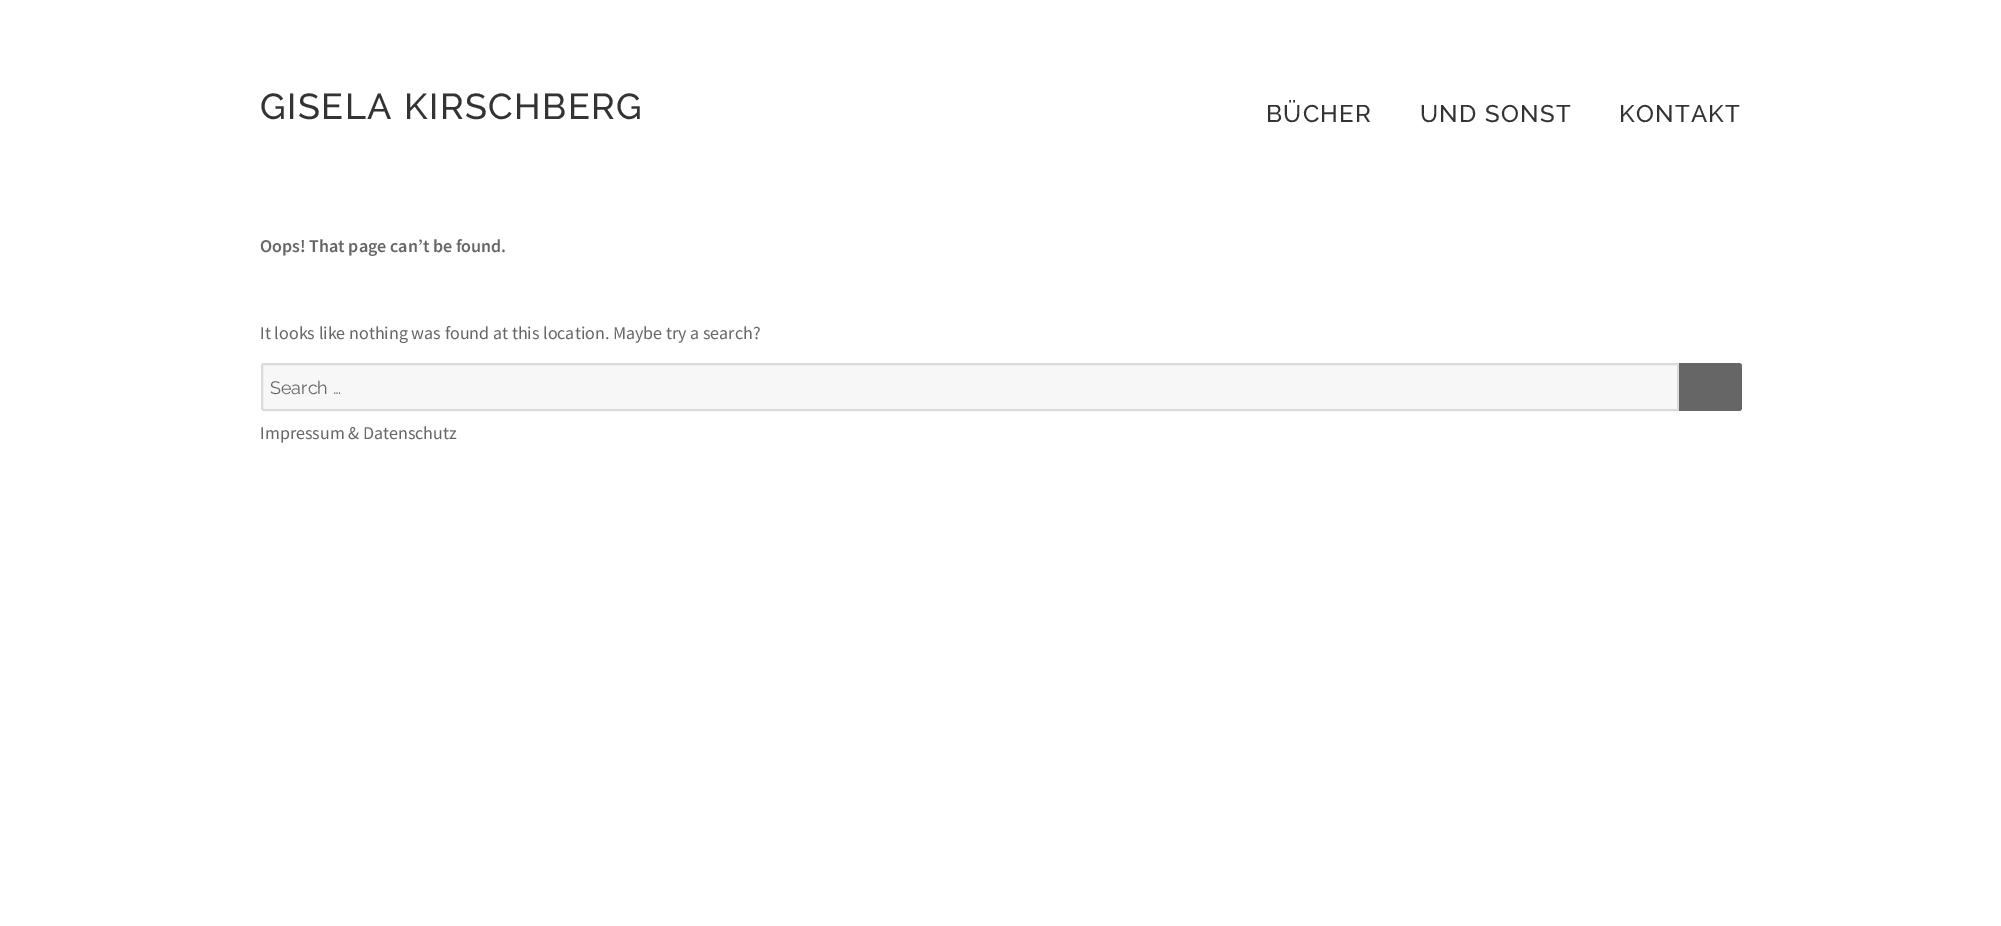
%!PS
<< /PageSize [2001 926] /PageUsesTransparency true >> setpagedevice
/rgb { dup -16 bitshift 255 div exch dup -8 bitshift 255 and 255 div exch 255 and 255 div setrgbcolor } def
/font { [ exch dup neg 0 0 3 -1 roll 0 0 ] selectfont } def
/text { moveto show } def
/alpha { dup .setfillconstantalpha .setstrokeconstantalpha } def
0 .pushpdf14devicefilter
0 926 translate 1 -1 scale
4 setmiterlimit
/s1 { /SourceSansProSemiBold-SemiBold 18 font 16#666666 rgb } def
/s2 { /SourceSansPro-Regular 18 font 16#666666 rgb } def
/s3 { /Raleway-Regular 18 font 16#666666 rgb } def
16#FFFFFF rgb
0 0 2001 926 rectfill
/Raleway-Medium 36 font
16#333333 rgb
260 119 moveto 1.5 0 (GISELA KIRSCHBERG) ashow
/Raleway-Medium 24 font
1266 122 moveto 1.25 0 (BÜCHER) ashow
1420 122 moveto 1.25 0 (UND SONST) ashow
1619 122 moveto 1.25 0 (KONTAKT) ashow
s1
(Oops! That page can’t be found.) 260 252 text
s2
(It looks like nothing was found at this location. Maybe try a search?) 260 339 text
16#F7F7F7 rgb
264 363 moveto 1679 363 lineto 1679 411 lineto 264 411 lineto 262.5 411 261 409.5 261 408 curveto 261 366 lineto 261 364.5 262.5 363 264 363 curveto closepath fill
0.2 alpha
16#666666 rgb
2 setlinewidth
264 364 moveto 1678 364 lineto 1678 410 lineto 264 410 lineto 263 410 262 409 262 408 curveto 262 366 lineto 262 365 263 364 264 364 curveto closepath stroke
1 alpha
s3
(Search …) 270 394 text
1679 363 moveto 1739 363 lineto 1740.5 363 1742 364.5 1742 366 curveto 1742 408 lineto 1742 409.5 1740.5 411 1739 411 curveto 1679 411 lineto closepath fill
s2
(Impressum & Datenschutz) 260 439 text
.poppdf14devicefilter showpage
